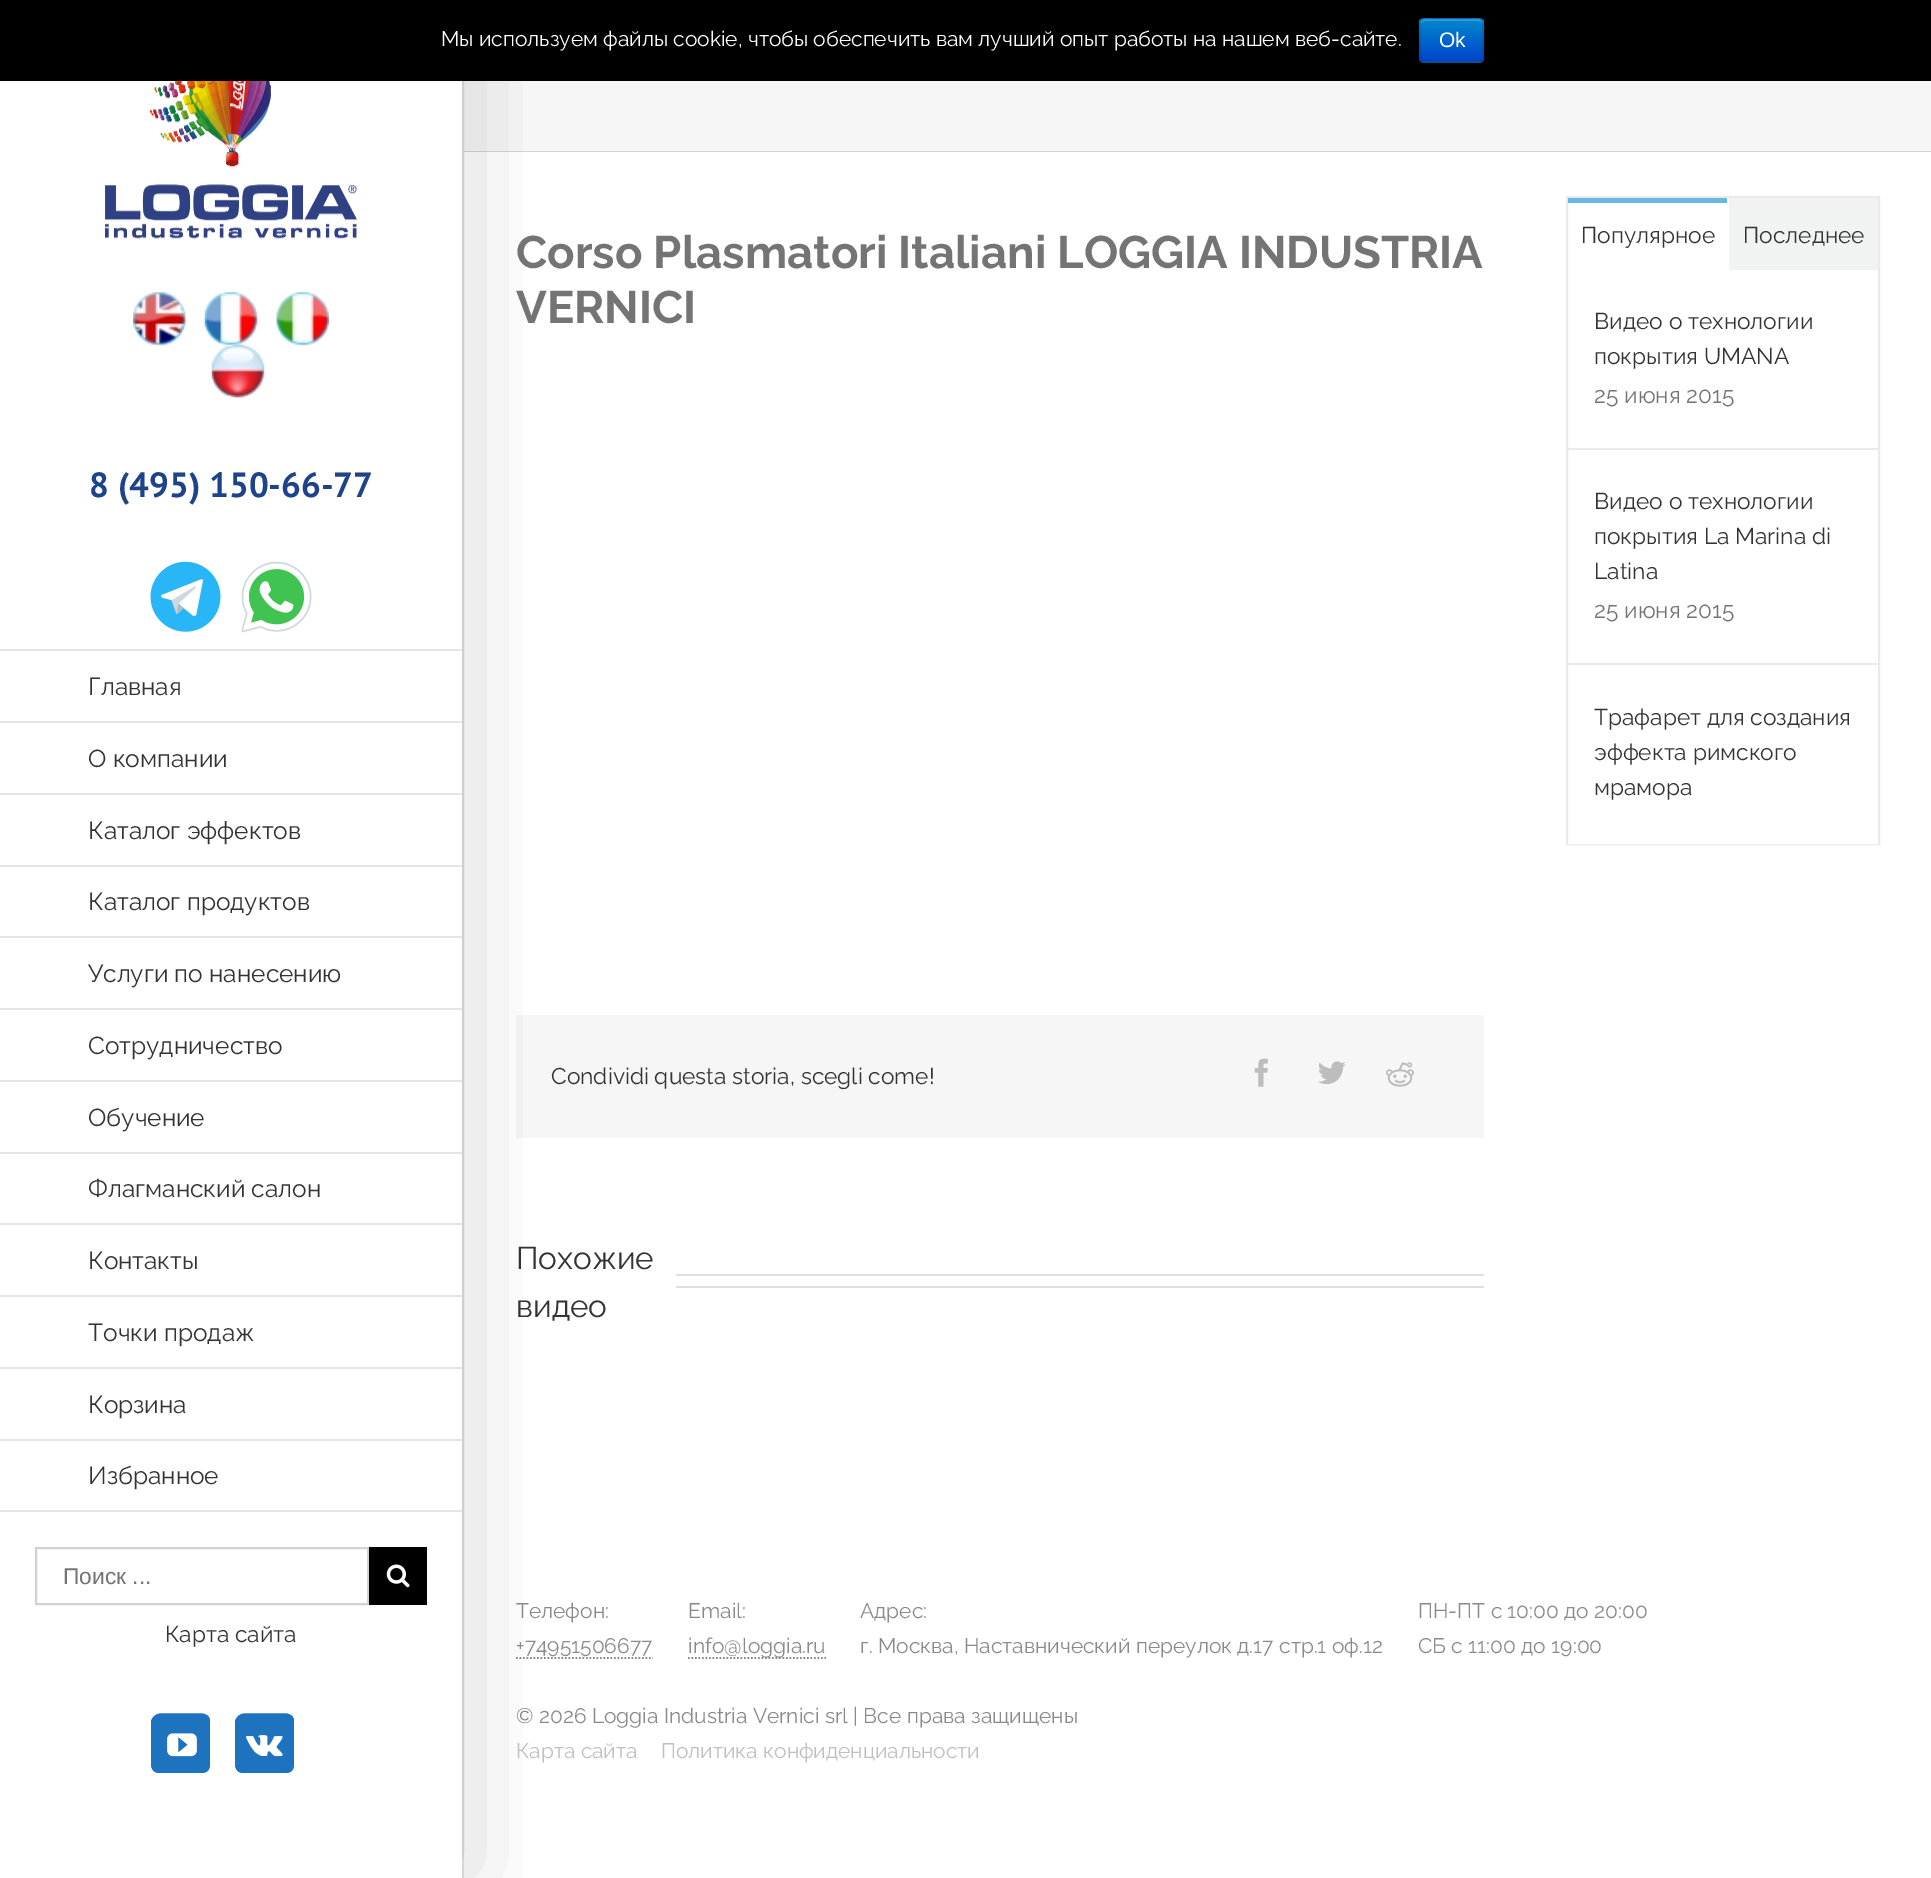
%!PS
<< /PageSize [1931 1878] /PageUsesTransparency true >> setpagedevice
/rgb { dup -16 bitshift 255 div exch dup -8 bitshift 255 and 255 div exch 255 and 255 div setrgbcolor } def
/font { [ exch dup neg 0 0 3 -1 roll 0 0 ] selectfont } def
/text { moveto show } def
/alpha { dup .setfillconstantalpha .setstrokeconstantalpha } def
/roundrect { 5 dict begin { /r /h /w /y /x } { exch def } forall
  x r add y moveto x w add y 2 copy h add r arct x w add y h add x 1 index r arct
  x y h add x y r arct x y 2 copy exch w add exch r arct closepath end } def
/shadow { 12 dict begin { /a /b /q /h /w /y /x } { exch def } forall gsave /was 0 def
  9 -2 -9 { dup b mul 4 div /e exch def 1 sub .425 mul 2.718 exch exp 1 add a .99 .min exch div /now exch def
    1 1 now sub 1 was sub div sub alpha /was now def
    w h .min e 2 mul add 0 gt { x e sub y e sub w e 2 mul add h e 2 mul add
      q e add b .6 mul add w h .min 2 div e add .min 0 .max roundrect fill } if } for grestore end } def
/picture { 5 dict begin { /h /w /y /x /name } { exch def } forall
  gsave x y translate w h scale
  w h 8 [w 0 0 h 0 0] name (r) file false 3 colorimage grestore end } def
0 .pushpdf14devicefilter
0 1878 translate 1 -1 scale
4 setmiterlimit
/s1 { /Raleway-Regular 21 font 16#FFFFFF rgb } def
/s2 { /LiberationSans-Regular 21 font 16#FFFFFF rgb } def
/s3 { /PTSans-Bold 35 font 16#1E438A rgb } def
/s4 { /Raleway-Regular 24.5 font 16#333333 rgb } def
/s5 { /LiberationSans-Regular 22.75 font 16#747474 rgb } def
/s6 { /Raleway-Regular 22.75 font 16#333333 rgb } def
/s7 { /Raleway-Bold 45.5 font 16#747474 rgb } def
/s8 { /Raleway-Regular 31.5 font 16#333333 rgb } def
/s9 { /Raleway-Regular 22.75 font 16#747474 rgb } def
/s10 { /Raleway-Regular 21 font 16#8C8989 rgb } def
/s11 { /Raleway-Regular 21 font 16#BFBFBF rgb } def
16#FFFFFF rgb
0 0 1931 1878 rectfill
16#E5E5E5 rgb
462 81 2 1797 rectfill
(pic1.raw) 105 81 252 158 picture
(pic2.raw) 133 292 53 54 picture
(pic3.raw) 204 292 54 54 picture
(pic4.raw) 276 292 53 54 picture
(pic5.raw) 211 344 54 54 picture
(pic6.raw) 150 561 71 71 picture
(pic7.raw) 241 561 71 72 picture
0 649 462 2 rectfill
0 721 462 2 rectfill
0 793 462 2 rectfill
0 865 462 2 rectfill
0 936 462 2 rectfill
0 1008 462 2 rectfill
0 1080 462 2 rectfill
0 1152 462 2 rectfill
0 1223 462 2 rectfill
0 1295 462 2 rectfill
0 1367 462 2 rectfill
0 1439 462 2 rectfill
0 1510 462 2 rectfill
16#D2D2D2 rgb
2 setlinewidth
36 1548 332 56 rectstroke
16#000000 rgb
369 1547 58 58 rectfill
(pic8.raw) 386 1564 24 24 picture
(pic9.raw) 151 1713 59 60 picture
(pic10.raw) 235 1713 59 60 picture
16#F6F6F6 rgb
464 81 1467 70 rectfill
16#D2D3D4 rgb
464 151 1467 1 rectfill
16#F6F6F6 rgb
516 1015 968 123 rectfill
16#8C8989 rgb
1.8 setlinewidth
[1.75 1.75] 0 setdash
516 1658 moveto 653 1658 lineto stroke
gsave
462 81 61 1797 rectclip
16#000000 rgb
21 4 455 1872 0 44 0.14 shadow
grestore
16#000000 rgb
0 0 1931 81 rectfill
s1
(Мы используем файлы cookie, чтобы обеспечить вам лучший опыт работы на нашем веб-сайте.) 441 46 text
16#006DCC rgb
1419 18 65 45 5 roundrect fill
gsave
1419 18 65 45 5 roundrect clip newpath
gsave 1419 19 moveto 1484 19 lineto 1484 61 lineto 1419 61 lineto closepath clip newpath
<< /ShadingType 2 /ColorSpace /DeviceRGB /Coords [1452 19 1452 61] /Extend [true true] /Function << /FunctionType 2 /Domain [0 1] /C0 [0 0.533 0.8] /C1 [0 0.267 0.8] /N 1 >> >> shfill grestore
grestore
0.2 alpha
16#FFFFFF rgb
1424 21 moveto 1479 21 lineto 1481 21 1482 23 1482 24 curveto 1482 17 1474 19 1469 19 curveto 1434 19 lineto 1429 19 1421 17 1421 24 curveto 1421 23 1423 21 1424 21 curveto closepath fill
0.25 alpha
16#000000 rgb
[] 0 setdash
1482 61 moveto 1481 61.5 1480 62 1479 62 curveto 1424.5 62 lineto 1423.5 62 1422 61.5 1421.5 61 curveto stroke
0.1 alpha
1421.5 61 moveto 1420.5 60 1420 59 1420 58 curveto 1420 23 lineto 1420 21.5 1420.5 20.5 1421.5 19.5 curveto 1422 19 1423.5 18.5 1424.5 18.5 curveto 1479 18.5 lineto 1480 18.5 1481 19 1482 19.5 curveto 1482.5 20.5 1483 21.5 1483 23 curveto 1483 58 lineto 1483 59 1482.5 60 1482 61 curveto stroke
1 alpha
s2
(Ok) 1439 47 text
s3
(8 \(495\) 150-66-77) 89 497 text
s4
(Главная) 88 695 text
(О компании) 88 767 text
(Каталог эффектов) 88 839 text
(Каталог продуктов) 88 910 text
(Услуги по нанесению) 88 982 text
(Сотрудничество) 88 1054 text
(Обучение) 88 1126 text
(Флагманский салон) 88 1197 text
(Контакты) 88 1269 text
(Точки продаж) 88 1341 text
(Корзина) 88 1413 text
(Избранное) 88 1484 text
s5
(Поиск ...) 63 1584 text
s6
(Карта сайта) 165 1642 text
s7
(Corso Plasmatori Italiani LOGGIA INDUSTRIA) 516 268 text
(VERNICI) 516 323 text
s6
(Condividi questa storia, scegli come!) 551 1084 text
(pic11.raw) 1254 1058 14 29 picture
(pic12.raw) 1318 1061 28 24 picture
(pic13.raw) 1386 1062 28 25 picture
s8
(Похожие) 516 1269 text
(видео) 516 1317 text
16#E0DEDE rgb
676 1274 808 2 rectfill
676 1286 808 2 rectfill
16#EBEAEA rgb
2 setlinewidth
1567 197 312 647 rectstroke
16#67B7E1 rgb
1568 198 159 5 rectfill
s6
(Популярное) 1581 243 text
16#F1F2F2 rgb
1729 198 149 72 rectfill
s6
(Последнее) 1743 243 text
16#FFFFFF rgb
1568 843 310 1 rectfill
16#EBEAEA rgb
1568 448 310 2 rectfill
s6
(Видео о технологии) 1594 329 text
(покрытия UMANA) 1594 364 text
s9
(25 июня 2015) 1594 403 text
16#EBEAEA rgb
1568 663 310 2 rectfill
s6
(Видео о технологии) 1594 509 text
(покрытия La Marina di) 1594 544 text
(Latina) 1594 579 text
s9
(25 июня 2015) 1594 618 text
s6
(Трафарет для создания) 1594 725 text
(эффекта римского) 1594 760 text
(мрамора) 1594 795 text
s10
(Телефон:) 516 1618 text
(+74951506677) 516 1653 text
(Email:) 688 1618 text
1.8 setlinewidth
[1.75 1.75] 0 setdash
688 1658 moveto 826 1658 lineto stroke
(info@loggia.ru) 688 1653 text
(Адрес:) 860 1618 text
(г. Москва, Наставнический переулок д.17 стр.1 оф.12) 860 1653 text
(ПН-ПТ с 10:00 до 20:00) 1418 1618 text
(СБ с 11:00 до 19:00) 1418 1653 text
(© 2026 Loggia Industria Vernici srl | Все права защищены) 516 1723 text
s11
(Карта сайта) 516 1758 text
(Политика конфиденциальности) 661 1758 text
.poppdf14devicefilter showpage
